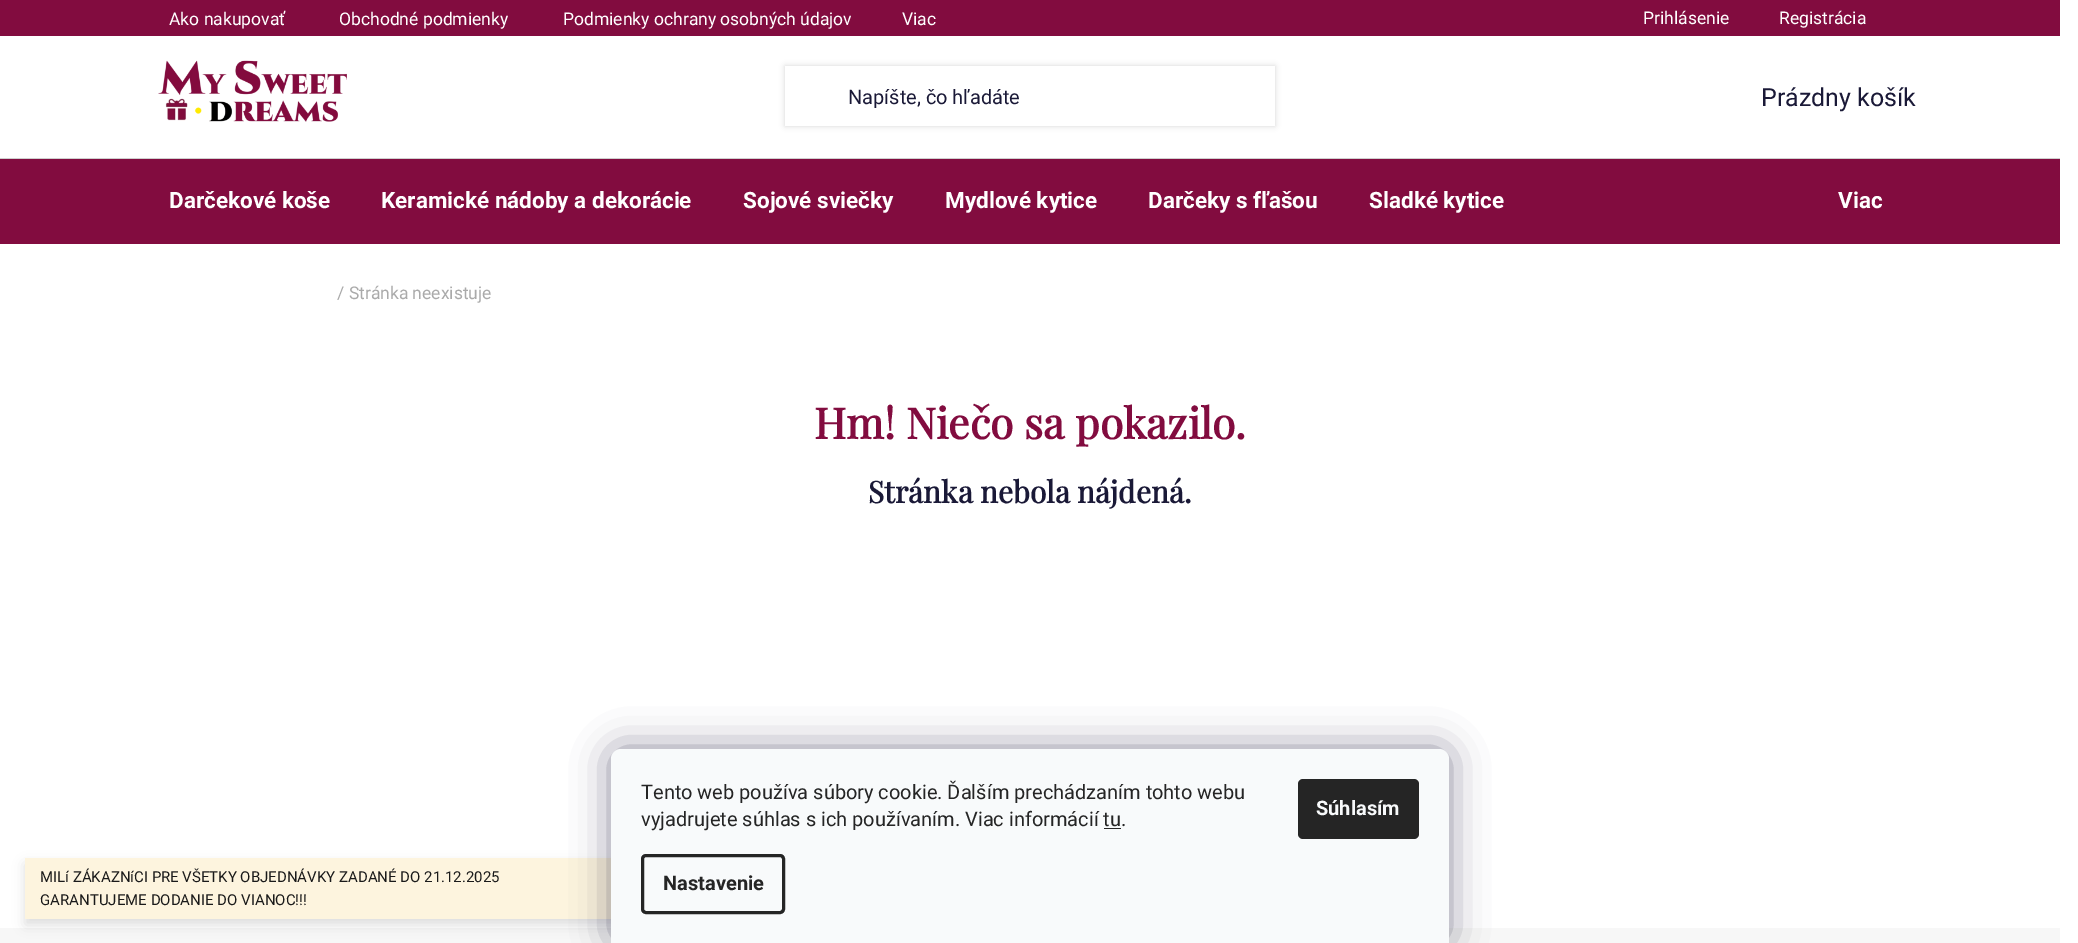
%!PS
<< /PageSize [2078 943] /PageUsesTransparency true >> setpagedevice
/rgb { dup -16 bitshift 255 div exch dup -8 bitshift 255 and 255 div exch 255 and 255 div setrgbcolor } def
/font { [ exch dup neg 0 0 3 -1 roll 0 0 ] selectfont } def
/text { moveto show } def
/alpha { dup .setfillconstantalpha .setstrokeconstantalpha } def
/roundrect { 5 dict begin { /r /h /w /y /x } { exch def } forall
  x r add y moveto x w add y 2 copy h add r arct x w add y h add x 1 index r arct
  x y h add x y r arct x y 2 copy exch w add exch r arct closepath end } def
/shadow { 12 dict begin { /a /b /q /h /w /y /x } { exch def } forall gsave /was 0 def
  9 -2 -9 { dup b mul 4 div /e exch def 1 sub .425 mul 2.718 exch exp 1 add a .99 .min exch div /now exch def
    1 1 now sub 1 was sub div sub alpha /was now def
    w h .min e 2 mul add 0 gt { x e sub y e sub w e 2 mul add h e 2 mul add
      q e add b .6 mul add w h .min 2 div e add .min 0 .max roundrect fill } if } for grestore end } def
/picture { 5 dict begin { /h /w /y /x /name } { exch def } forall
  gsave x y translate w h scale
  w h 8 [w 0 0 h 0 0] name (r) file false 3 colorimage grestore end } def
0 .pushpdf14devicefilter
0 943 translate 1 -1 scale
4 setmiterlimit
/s1 { /Roboto-Regular 17.5 font 16#FFFFFF rgb } def
/s2 { /Roboto-Regular 20 font 16#1A1937 rgb } def
/s3 { /Roboto-Regular 25 font 16#1A1937 rgb } def
/s4 { /Roboto-Bold 22.5 font 16#FFFFFF rgb } def
/s5 { /Roboto-Regular 17.5 font 16#AAAAAA rgb } def
/s6 { /PlayfairDisplay-Bold 42.5 font 16#820C3F rgb } def
/s7 { /PlayfairDisplay-Bold 30 font 16#1A1937 rgb } def
/s8 { /Roboto-Regular 15 font 16#1A1A1A rgb } def
/s9 { /Roboto-Regular 20 font 16#252525 rgb } def
/s10 { /Roboto-Bold 20 font 16#252525 rgb } def
/s11 { /Roboto-Bold 20 font 16#F8FAFB rgb } def
16#FFFFFF rgb
0 0 2078 943 rectfill
16#820C3F rgb
0 0 2060 36 rectfill
s1
(Ako nakupovať) 169 25 text
(Obchodné podmienky) 339 25 text
(Podmienky ochrany osobných údajov) 563 25 text
(Viac) 902 25 text
(Prihlásenie) 1643 24 text
(Registrácia) 1779 24 text
(pic1.raw) 158 60 189 62 picture
16#000000 rgb
785 66 490 60 0 3 0.16 shadow
16#FFFFFF rgb
785 66 490 60 rectfill
s2
(Napíšte, čo hľadáte) 848 104 text
s3
(Prázdny košík) 1761 106 text
16#820C3F rgb
0 159 2060 85 rectfill
16#CFCFCF rgb
0 158 2060 1 rectfill
s4
(Darčekové koše) 169 208 text
(Keramické nádoby a dekorácie) 381 208 text
(Sojové sviečky) 743 208 text
(Mydlové kytice) 945 208 text
(Darčeky s fľašou) 1148 208 text
(Sladké kytice) 1369 208 text
(Viac) 1838 208 text
s5
(/ Stránka neexistuje) 337 299 text
s6
(Hm! Niečo sa pokazilo.) 814 439 text
s7
(Stránka nebola nájdená.) 868 503 text
16#F7F7F7 rgb
0 928 2060 15 rectfill
16#000000 rgb
25 864 600 61 0 6 0.14 shadow
16#FDF4DE rgb
25 858 586 61 rectfill
s8
(MILí ZÁKAZNíCI PRE VŠETKY OBJEDNÁVKY ZADANÉ DO 21.12.2025) 40 882 text
(GARANTUJEME DODANIE DO VIANOC!!!) 40 905 text
16#1B1939 rgb
611 749 838 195 10 19 0.5 shadow
16#F8FAFB rgb
621 749 moveto 1439 749 lineto 1444.5 749 1449 753.5 1449 759 curveto 1449 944 lineto 611 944 lineto 611 759 lineto 611 753.5 615.5 749 621 749 curveto closepath fill
s9
(Tento web používa súbory cookie. Ďalším prechádzaním tohto webu) 641 799 text
(vyjadrujete súhlas s ich používaním. Viac informácií tu.) 641 826 text
1104 828 17 1 rectfill
3 setlinewidth
642.5 855.5 141 57 3.5 roundrect stroke
s10
(Nastavenie) 663 890 text
1298 779 121 60 5 roundrect fill
s11
(Súhlasím) 1316 815 text
.poppdf14devicefilter showpage
